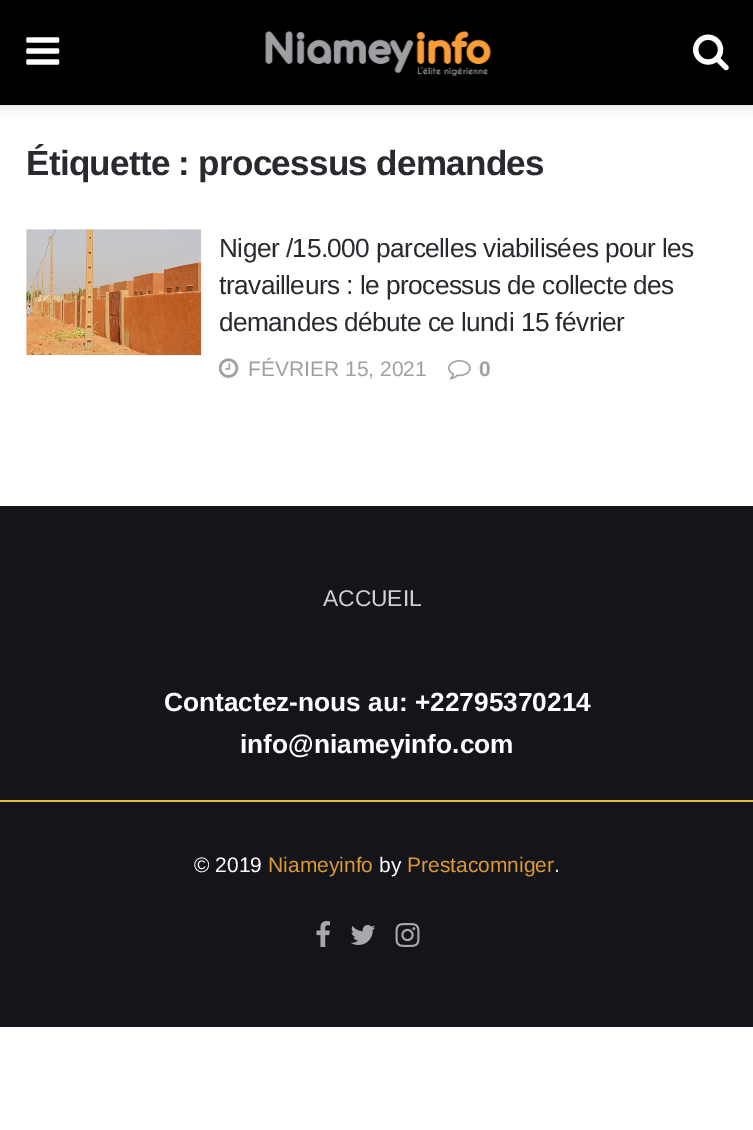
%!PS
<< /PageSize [753 1130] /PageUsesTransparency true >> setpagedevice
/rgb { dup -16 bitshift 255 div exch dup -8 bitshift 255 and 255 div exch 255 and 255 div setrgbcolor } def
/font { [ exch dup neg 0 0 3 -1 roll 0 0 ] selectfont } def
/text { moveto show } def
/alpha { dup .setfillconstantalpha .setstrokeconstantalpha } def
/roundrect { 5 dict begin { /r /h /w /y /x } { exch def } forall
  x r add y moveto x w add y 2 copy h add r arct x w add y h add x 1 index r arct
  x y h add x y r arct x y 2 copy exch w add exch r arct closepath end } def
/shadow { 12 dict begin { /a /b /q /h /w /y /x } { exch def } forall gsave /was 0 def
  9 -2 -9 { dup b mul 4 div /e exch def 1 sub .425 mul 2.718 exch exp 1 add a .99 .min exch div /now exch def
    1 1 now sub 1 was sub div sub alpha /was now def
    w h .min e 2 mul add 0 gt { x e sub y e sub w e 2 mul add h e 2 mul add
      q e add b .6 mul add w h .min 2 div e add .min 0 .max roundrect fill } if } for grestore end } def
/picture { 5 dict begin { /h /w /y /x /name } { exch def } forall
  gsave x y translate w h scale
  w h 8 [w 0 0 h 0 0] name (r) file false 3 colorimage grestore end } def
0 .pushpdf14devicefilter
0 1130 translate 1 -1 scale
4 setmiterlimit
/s1 { /LiberationSans-Regular 21 font 16#A0A0A0 rgb } def
/s2 { /LiberationSans-Bold 21 font 16#A0A0A0 rgb } def
/s3 { /LiberationSans-Regular 22.75 font 16#D0D0D1 rgb } def
/s4 { /LiberationSans-Bold 26.25 font 16#FFFFFF rgb } def
/s5 { /LiberationSans-Regular 21 font 16#FFFFFF rgb } def
/s6 { /LiberationSans-Regular 21 font 16#DD9933 rgb } def
16#FFFFFF rgb
0 0 753 1130 rectfill
16#000000 rgb
0 4 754 105 0 5 0.1 shadow
0 0 753 105 rectfill
(pic1.raw) 26 37 34 28 picture
(pic2.raw) 265 31 226 45 picture
(pic3.raw) 693 34 36 37 picture
/LiberationSans-Bold 35 font
16#29292F rgb
26 175 moveto -0.7 0 (Étiquette : processus demandes) ashow
16#F7F7F7 rgb
26 229 175 126 rectfill
(pic4.raw) 26 229 176 127 picture
/LiberationSans-Regular 26.25 font
16#29292F rgb
219 257 moveto -0.55 0 (Niger /15.000 parcelles viabilisées pour les) ashow
219 294 moveto -0.55 0 (travailleurs : le processus de collecte des) ashow
219 331 moveto -0.55 0 (demandes débute ce lundi 15 février) ashow
(pic5.raw) 219 358 20 20 picture
s1
(FÉVRIER 15, 2021) 248 376 text
(pic6.raw) 448 360 23 20 picture
s2
(0) 479 376 text
16#14141B rgb
0 506 753 521 rectfill
s3
(ACCUEIL) 323 606 text
s4
(Contactez-nous au: +22795370214) 164 711 text
(info@niameyinfo.com) 240 753 text
16#E8BD3B rgb
0 800 753 2 rectfill
s5
(© 2019) 194 872 text
s6
(Niameyinfo) 268 872 text
s5
(by) 379 872 text
s6
(Prestacomniger) 407 872 text
s5
(.) 554 872 text
(pic7.raw) 316 921 14 26 picture
(pic8.raw) 350 925 26 20 picture
(pic9.raw) 395 923 25 24 picture
.poppdf14devicefilter showpage
